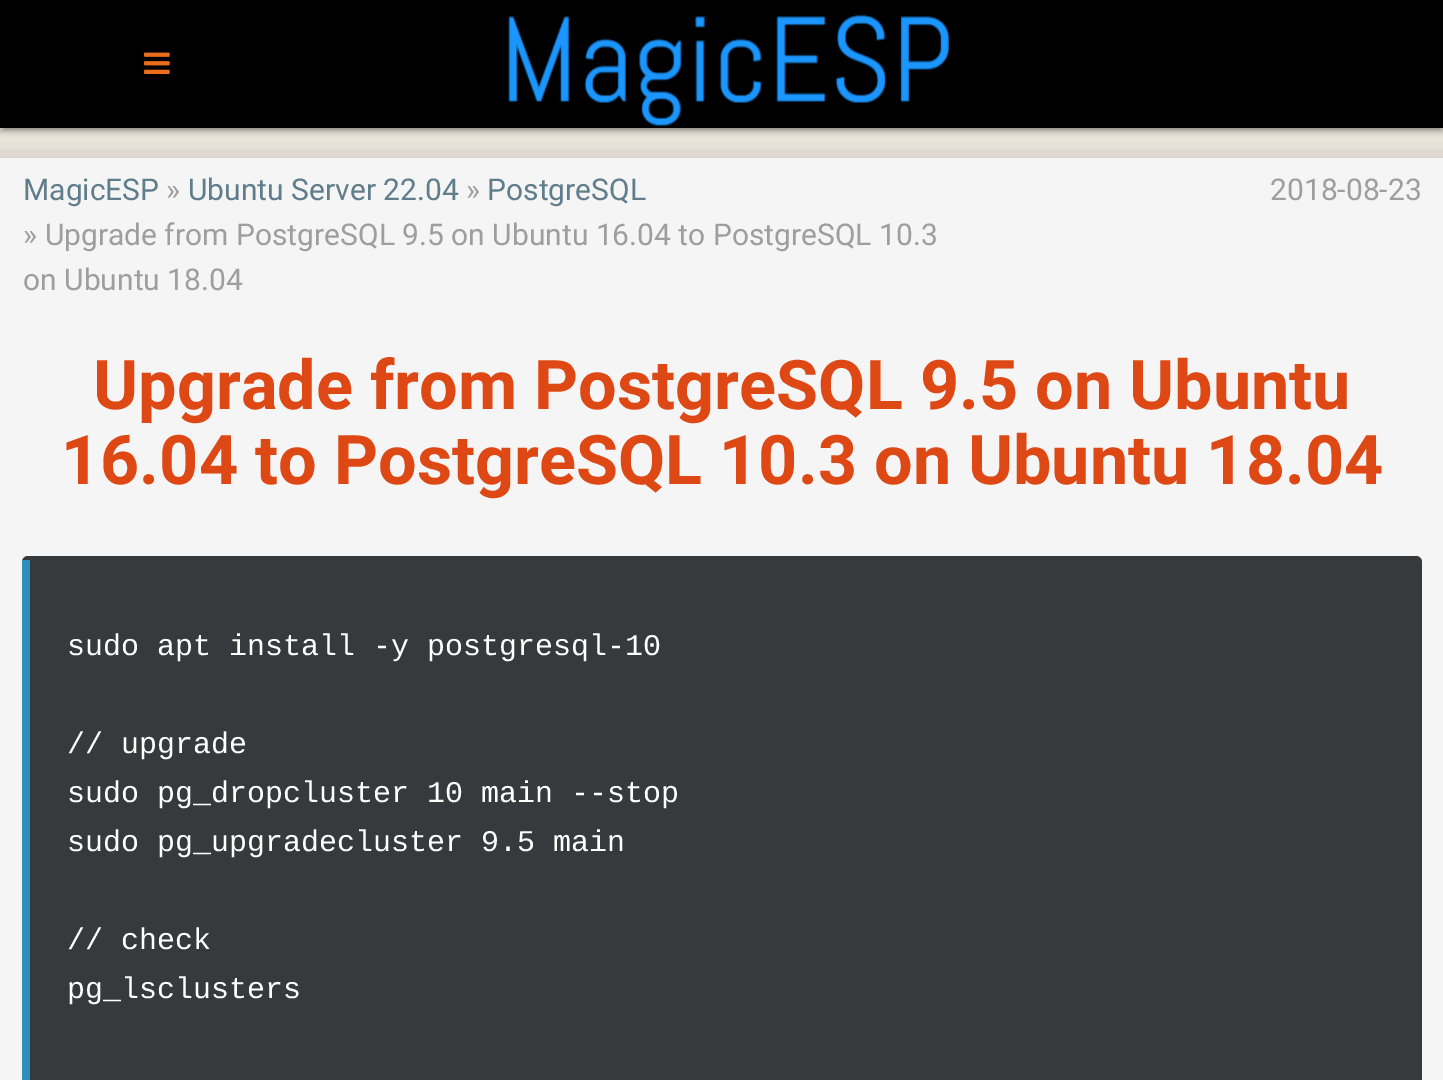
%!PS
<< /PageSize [1443 1080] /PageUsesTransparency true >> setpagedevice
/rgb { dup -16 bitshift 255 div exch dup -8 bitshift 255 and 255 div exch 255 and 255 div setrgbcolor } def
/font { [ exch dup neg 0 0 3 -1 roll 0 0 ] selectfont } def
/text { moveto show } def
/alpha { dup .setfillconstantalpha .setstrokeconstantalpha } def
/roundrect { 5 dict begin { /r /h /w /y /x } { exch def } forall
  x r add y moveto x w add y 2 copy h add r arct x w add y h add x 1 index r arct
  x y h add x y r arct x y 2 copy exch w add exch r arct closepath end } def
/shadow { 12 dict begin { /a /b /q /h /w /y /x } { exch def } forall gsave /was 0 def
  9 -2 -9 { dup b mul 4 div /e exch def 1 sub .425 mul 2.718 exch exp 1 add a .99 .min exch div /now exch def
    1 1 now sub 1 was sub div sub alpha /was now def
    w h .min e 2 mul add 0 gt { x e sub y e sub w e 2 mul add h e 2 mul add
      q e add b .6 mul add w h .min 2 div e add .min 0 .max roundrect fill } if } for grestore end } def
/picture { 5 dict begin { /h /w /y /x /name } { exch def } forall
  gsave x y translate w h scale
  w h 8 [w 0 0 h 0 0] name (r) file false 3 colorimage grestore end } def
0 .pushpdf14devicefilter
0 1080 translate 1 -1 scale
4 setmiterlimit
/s1 { /Roboto-Regular 30 font 16#607D8B rgb } def
/s2 { /Roboto-Regular 30 font 16#9E9E9E rgb } def
/s3 { /Roboto-Bold 68.4 font 16#DD4814 rgb } def
/s4 { /LiberationMono-Regular 30 font 16#FFFFFF rgb } def
16#EEE8DE rgb
0 0 1443 1080 rectfill
16#000000 rgb
0 2 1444 128 0 5 0.2 shadow
4 10 1436 120 0 1 0.12 shadow
0 4 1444 128 0 2 0.14 shadow
0 0 1443 128 rectfill
(pic1.raw) 144 52 26 22 picture
-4 160 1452 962 0 14 0.12 shadow
-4 170 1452 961 0 17 0.14 shadow
(pic2.raw) 508 14 441 112 picture
16#F5F5F5 rgb
0 158 1443 922 rectfill
s1
(MagicESP) 23 200 text
s2
(») 166 200 text
s1
(Ubuntu Server 22.04) 188 200 text
s2
(») 466 200 text
s1
(PostgreSQL) 487 200 text
s2
(» Upgrade from PostgreSQL 9.5 on Ubuntu 16.04 to PostgreSQL 10.3) 23 245 text
(on Ubuntu 18.04) 23 290 text
(2018-08-23) 1270 200 text
s3
(Upgrade from PostgreSQL 9.5 on Ubuntu) 93 409 text
(16.04 to PostgreSQL 10.3 on Ubuntu 18.04) 61 484 text
16#373A3C rgb
22 556 1400 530 6 roundrect fill
16#2C8EBB rgb
22 560 8 520 rectfill
s4
(sudo apt install -y postgresql-10) 67 655 text
(// upgrade) 67 753 text
(sudo pg_dropcluster 10 main --stop) 67 802 text
(sudo pg_upgradecluster 9.5 main) 67 851 text
(// check) 67 949 text
(pg_lsclusters) 67 998 text
.poppdf14devicefilter showpage
